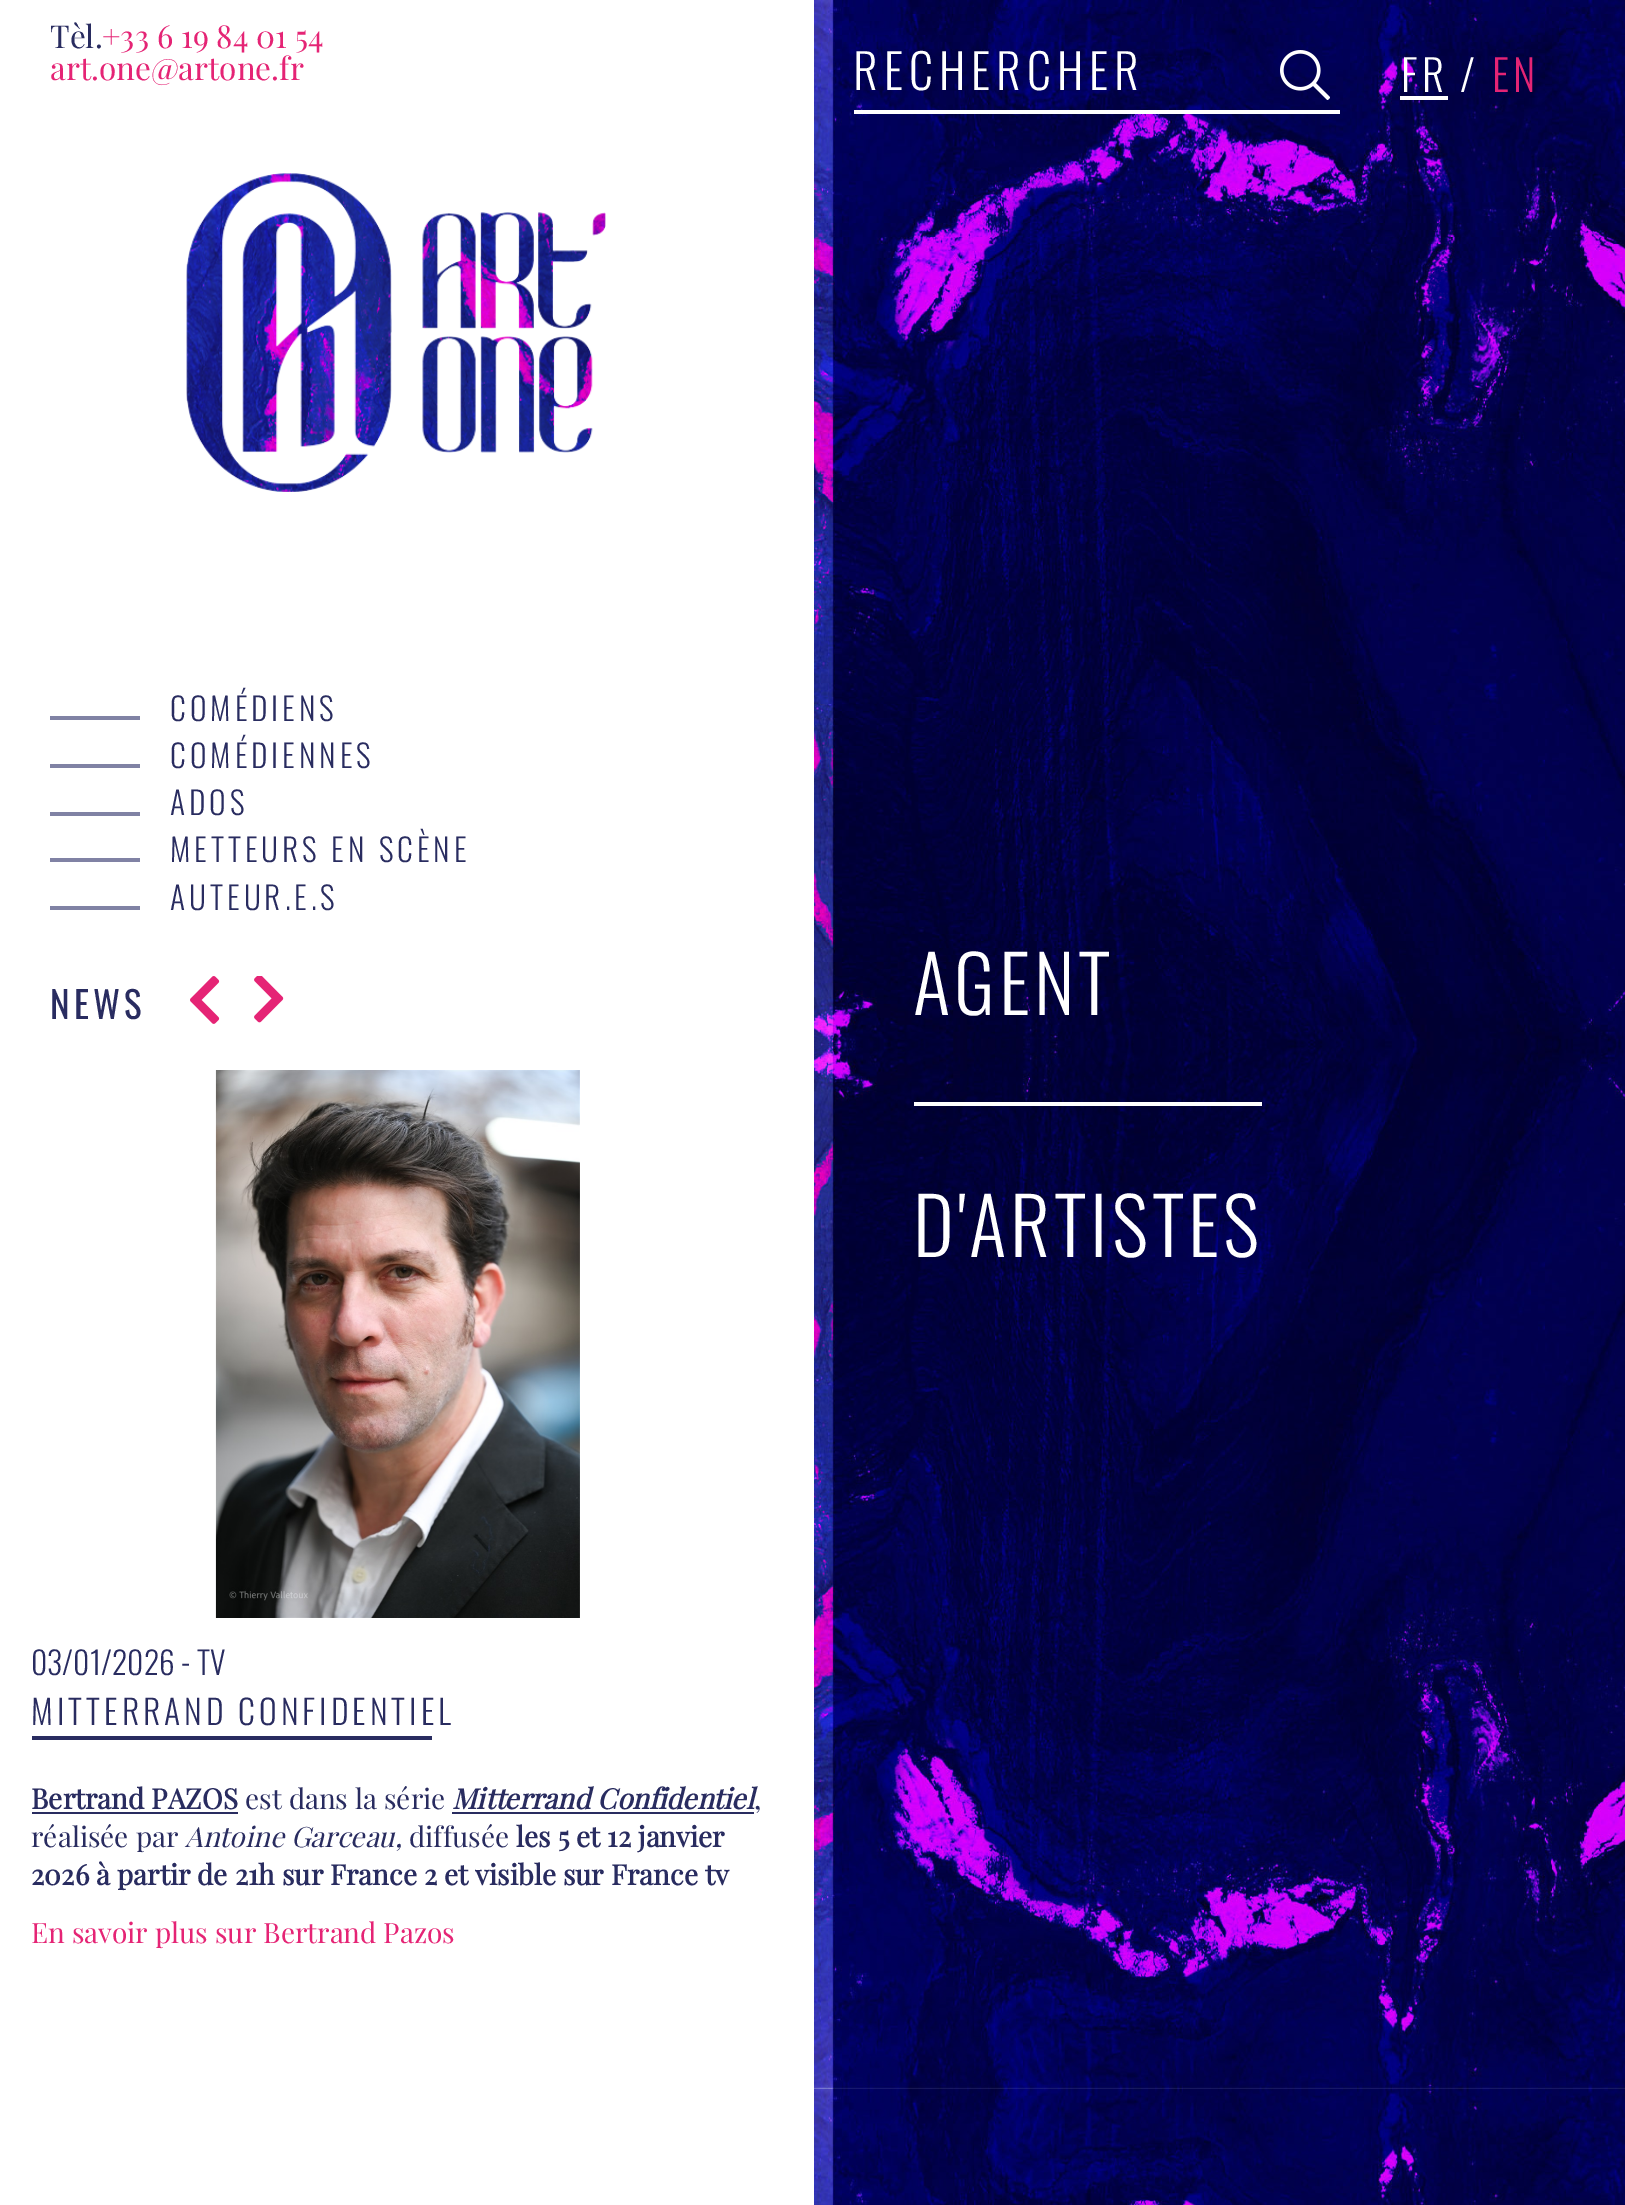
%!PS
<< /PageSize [1625 2205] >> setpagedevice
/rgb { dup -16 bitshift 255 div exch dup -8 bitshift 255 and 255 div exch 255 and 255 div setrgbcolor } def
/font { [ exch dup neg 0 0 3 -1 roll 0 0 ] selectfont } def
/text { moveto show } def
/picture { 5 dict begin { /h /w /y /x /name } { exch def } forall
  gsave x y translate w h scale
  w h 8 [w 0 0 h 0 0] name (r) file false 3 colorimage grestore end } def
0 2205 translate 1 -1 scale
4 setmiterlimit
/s1 { /PlayfairDisplay-Regular 31.5 font 16#292C60 rgb } def
/s2 { /PlayfairDisplay-Regular 31.5 font 16#E52475 rgb } def
/s3 { /Oswald-Light 31.5 font 16#292C60 rgb } def
/s4 { /PlayfairDisplay-Bold 28 font 16#292C60 rgb } def
/s5 { /PlayfairDisplay-Regular 28 font 16#292C60 rgb } def
/s6 { /PlayfairDisplay-BoldItalic 28 font 16#292C60 rgb } def
/s7 { /PlayfairDisplay-Italic 28 font 16#292C60 rgb } def
/s8 { /PlayfairDisplay-Regular 28 font 16#E52475 rgb } def
16#FFFFFF rgb
0 0 1625 2205 rectfill
(pic1.raw) 814 0 811 2205 picture
s1
(Tèl.) 50 48 text
s2
(+33 6 19 84 01 54) 102 48 text
(art.one@artone.fr) 50 80 text
(pic2.raw) 186 173 420 319 picture
16#8082A4 rgb
50 716 90 4 rectfill
/Oswald-Light 31.5 font
16#292C60 rgb
170 721 moveto 4 0 (COMÉDIENS) ashow
16#8082A4 rgb
50 764 90 4 rectfill
16#292C60 rgb
170 768 moveto 4 0 (COMÉDIENNES) ashow
16#8082A4 rgb
50 812 90 4 rectfill
16#292C60 rgb
170 815 moveto 4 0 (ADOS) ashow
16#8082A4 rgb
50 858 90 4 rectfill
16#292C60 rgb
170 862 moveto 4 0 (METTEURS EN SCÈNE) ashow
16#8082A4 rgb
50 906 90 4 rectfill
16#292C60 rgb
170 910 moveto 4 0 (AUTEUR.E.S) ashow
/Oswald-Regular 37 font
50 1019 moveto 4 0 (NEWS) ashow
(pic3.raw) 190 976 30 48 picture
(pic4.raw) 254 976 30 47 picture
(pic5.raw) 215 1070 365 548 picture
s3
(03/01/2026 - TV) 31 1675 text
/Oswald-Light 33.75 font
31 1725 moveto 4 0 (MITTERRAND CONFIDENTIEL) ashow
32 1736 400 4 rectfill
s4
(Bertrand PAZOS) 31 1809 text
32 1812 206 2 rectfill
s5
(est dans la série) 245 1809 text
s6
(Mitterrand Confidentiel) 452 1809 text
452 1812 302 2 rectfill
s5
(,) 754 1809 text
(réalisée par) 31 1847 text
s7
(Antoine Garceau,) 185 1847 text
s5
(diffusée) 409 1847 text
s4
(les 5 et 12 janvier) 516 1847 text
(2026 à partir de 21h sur France 2 et visible sur France tv) 31 1885 text
s8
(En savoir plus sur Bertrand Pazos) 31 1943 text
16#FFFFFF rgb
854 110 486 4 rectfill
/Oswald-Light 48 font
853 90 moveto 6 0 (RECHERCHER) ashow
(pic6.raw) 1280 50 50 50 picture
/Oswald-Light 43 font
1401 92 moveto 4 0 (FR /) ashow
1400 96 48 4 rectfill
16#E52475 rgb
1492 92 moveto 4 0 (EN) ashow
16#FFFFFF rgb
914 1102 348 4 rectfill
/Oswald-Light 78 font
913 1015 moveto 4 0 (AGENT) ashow
913 1257 moveto 4 0 (D'ARTISTES) ashow
showpage
